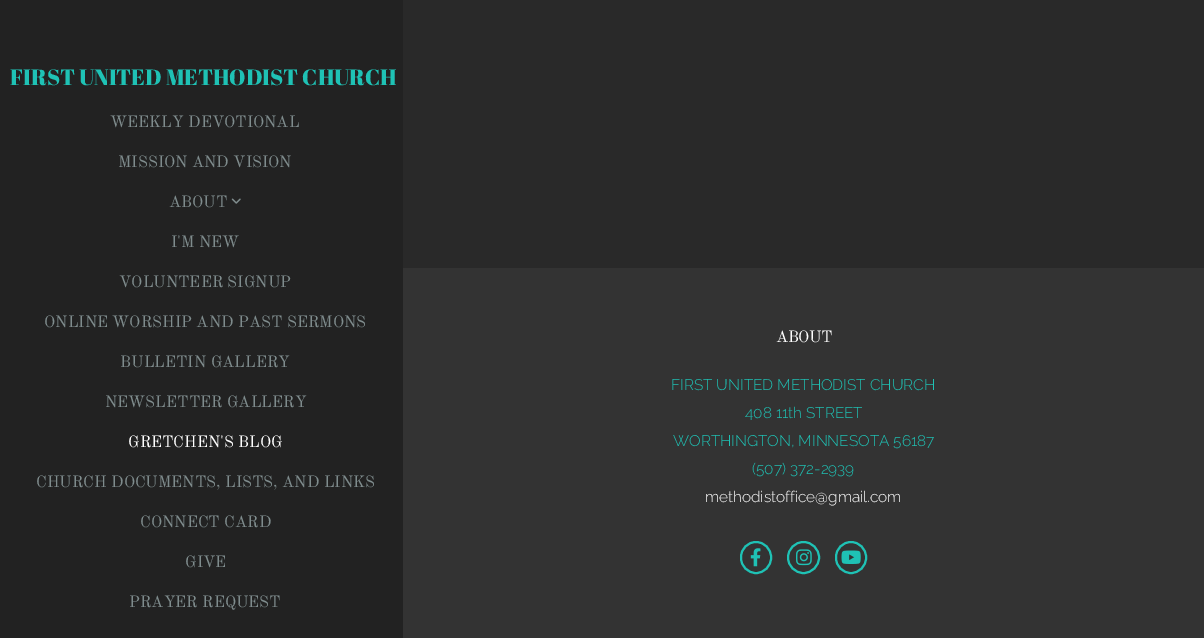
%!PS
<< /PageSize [1204 638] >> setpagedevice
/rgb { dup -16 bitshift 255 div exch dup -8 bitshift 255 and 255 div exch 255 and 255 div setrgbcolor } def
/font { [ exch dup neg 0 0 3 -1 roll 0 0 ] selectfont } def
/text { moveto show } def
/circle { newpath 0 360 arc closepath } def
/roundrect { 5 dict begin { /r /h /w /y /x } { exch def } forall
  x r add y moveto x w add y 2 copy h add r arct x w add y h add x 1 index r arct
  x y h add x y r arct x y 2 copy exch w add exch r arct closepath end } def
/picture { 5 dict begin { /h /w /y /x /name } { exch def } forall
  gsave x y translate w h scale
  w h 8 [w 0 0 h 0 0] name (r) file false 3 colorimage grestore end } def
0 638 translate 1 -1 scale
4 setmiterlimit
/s1 { /AbrilFatface-Regular 22 font 16#1FC2B5 rgb } def
/s2 { /OldStandardTT-Regular 16 font 16#7F8C8D rgb } def
/s3 { /OldStandardTT-Regular 16 font 16#FFFFFF rgb } def
/s4 { /Raleway-Light 15.4 font 16#1FC2B5 rgb } def
/s5 { /Raleway-Light 15.4 font 16#FFFFFF rgb } def
16#222222 rgb
0 0 1204 638 rectfill
s1
(FIRST UNITED METHODIST CHURCH) 10 85 text
s2
(WEEKLY DEVOTIONAL) 110 127 text
(MISSION AND VISION) 118 167 text
(ABOUT) 169 207 text
(pic1.raw) 231 198 10 6 picture
(I'M NEW) 171 247 text
(VOLUNTEER SIGNUP) 119 287 text
(ONLINE WORSHIP AND PAST SERMONS) 44 327 text
(BULLETIN GALLERY) 120 367 text
(NEWSLETTER GALLERY) 105 407 text
s3
(GRETCHEN'S BLOG) 128 447 text
s2
(CHURCH DOCUMENTS, LISTS, AND LINKS) 36 487 text
(CONNECT CARD) 140 527 text
(GIVE) 185 567 text
(PRAYER REQUEST) 129 607 text
16#292929 rgb
403 0 801 268 rectfill
16#333333 rgb
403 268 801 370 rectfill
16#FFFFFF rgb
776 342 moveto -0.5 0 (ABOUT) ashow
s4
(FIRST UNITED METHODIST CHURCH) 671 390 text
(408 11th STREET) 745 418 text
(WORTHINGTON, MINNESOTA 56187) 673 446 text
(\(507\) 372-2939) 752 474 text
s5
(methodistoffice@gmail.com) 705 502 text
16#1FC2B5 rgb
2 setlinewidth
741 542 30 31 15 roundrect stroke
(pic2.raw) 750 548 11 19 picture
803.5 557.5 15.5 circle stroke
(pic3.raw) 796 549 16 17 picture
836 542 30 31 15 roundrect stroke
(pic4.raw) 841 550 20 14 picture
showpage
